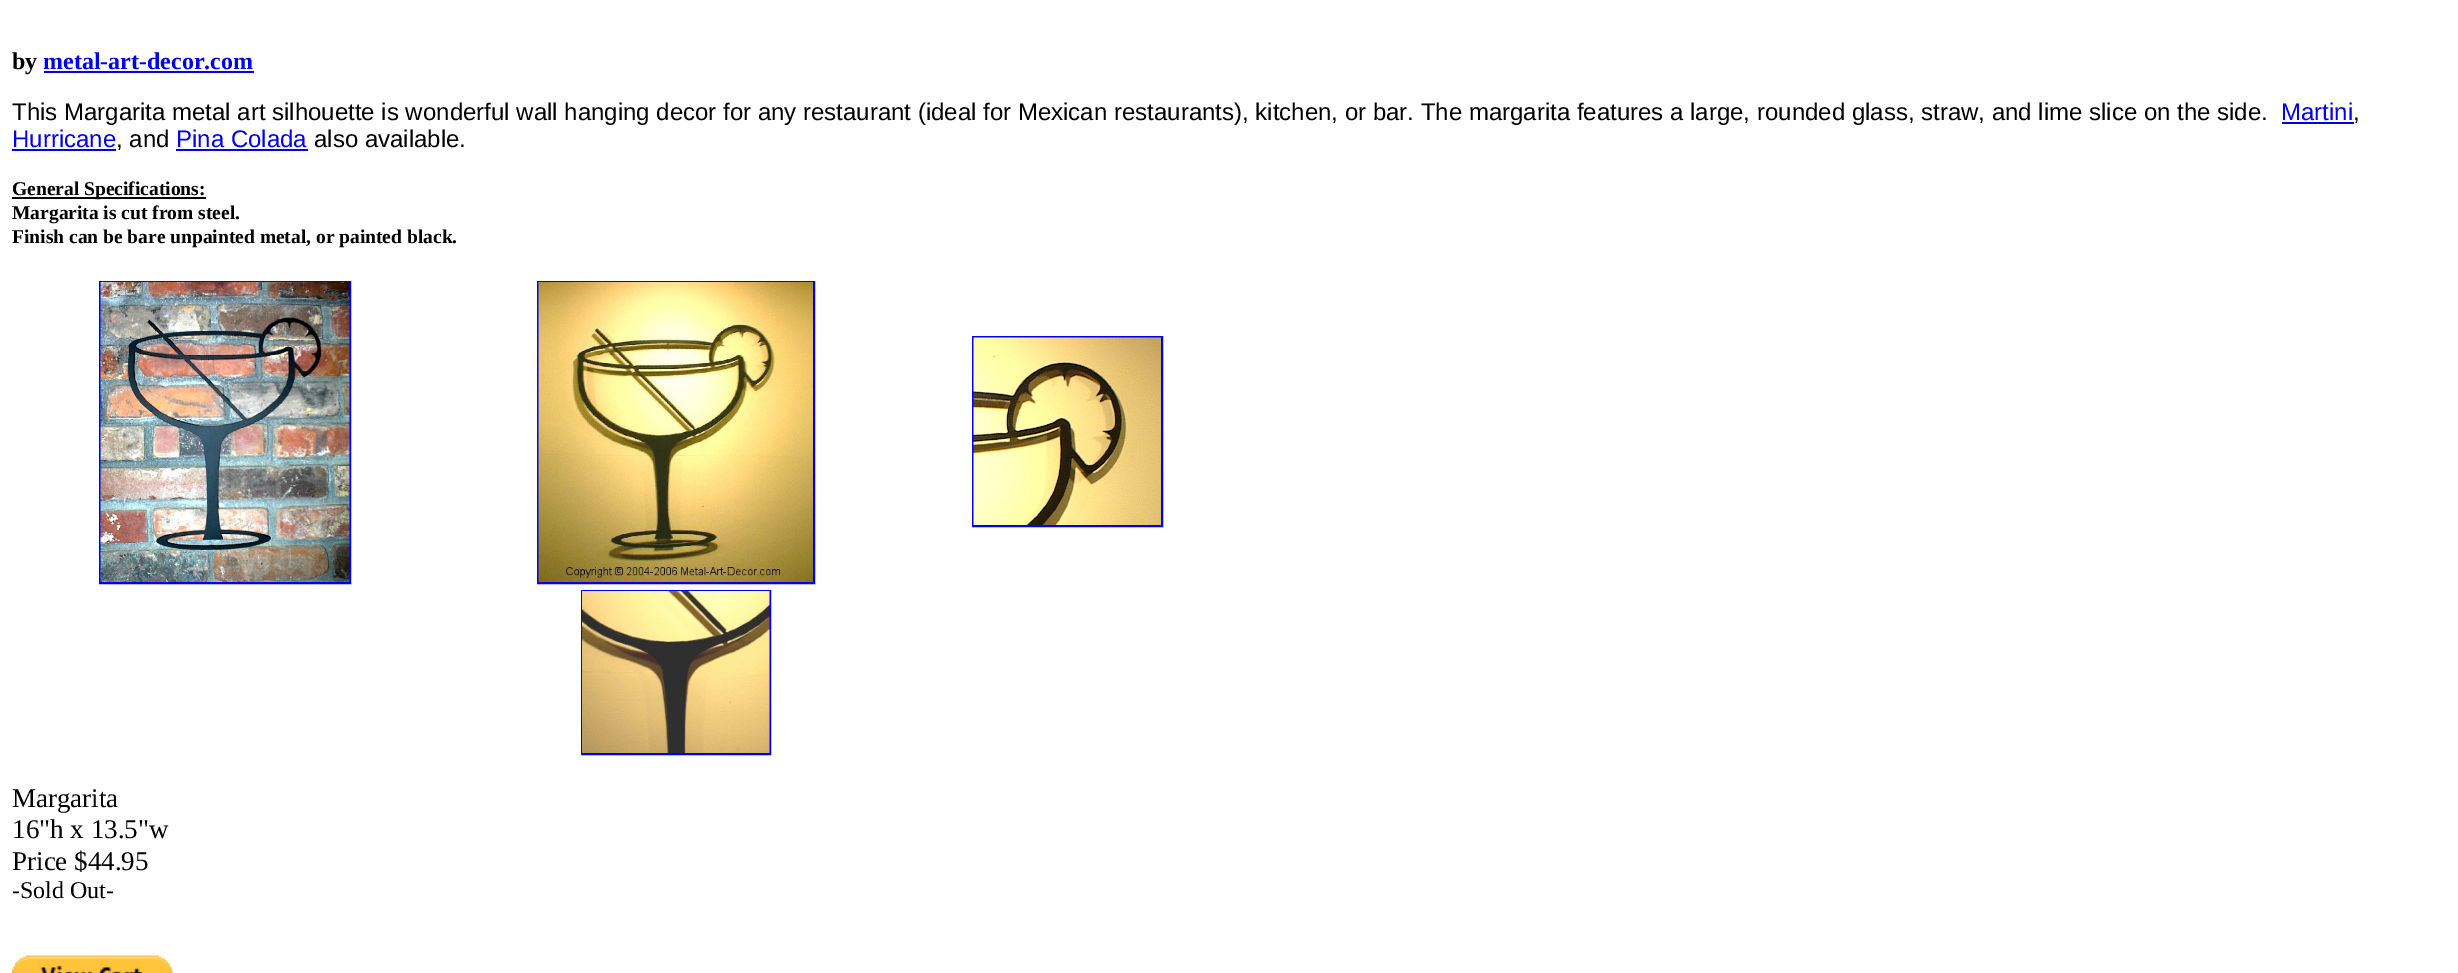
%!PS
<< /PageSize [2458 973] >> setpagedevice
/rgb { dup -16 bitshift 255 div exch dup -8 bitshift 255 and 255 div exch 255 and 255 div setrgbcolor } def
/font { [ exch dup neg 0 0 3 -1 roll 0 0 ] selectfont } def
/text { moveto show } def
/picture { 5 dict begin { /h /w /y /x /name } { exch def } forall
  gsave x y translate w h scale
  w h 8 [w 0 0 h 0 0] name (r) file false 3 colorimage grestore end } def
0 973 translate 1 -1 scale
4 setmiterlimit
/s1 { /LiberationSerif-Bold 24 font 16#000000 rgb } def
/s2 { /LiberationSerif-Bold 24 font 16#0000EE rgb } def
/s3 { /LiberationSans-Regular 24 font 16#000000 rgb } def
/s4 { /LiberationSans-Regular 24 font 16#0000EE rgb } def
/s5 { /LiberationSerif-Bold 19.5 font 16#000000 rgb } def
/s6 { /LiberationSerif-Regular 27 font 16#000000 rgb } def
/s7 { /LiberationSerif-Regular 24 font 16#000000 rgb } def
16#FFFFFF rgb
0 0 2458 973 rectfill
s1
(by) 12 69 text
s2
(metal-art-decor.com) 43 69 text
44 71 210 2 rectfill
s3
(This Margarita metal art silhouette is wonderful wall hanging decor for any restaurant \(ideal for Mexican restaurants\), kitchen, or bar. The margarita features a large, rounded glass, straw, and lime slice on the side.) 12 120 text
s4
(Martini) 2281 120 text
s3
(,) 2353 120 text
16#0000EE rgb
2282 122 72 2 rectfill
(Hurricane) 12 147 text
s3
(, and) 116 147 text
16#0000EE rgb
12 149 104 2 rectfill
(Pina Colada) 176 147 text
176 149 132 2 rectfill
s3
(also available.) 314 147 text
12 197 194 2 rectfill
s5
(General Specifications:) 12 195 text
(Margarita is cut from steel.) 12 219 text
(Finish can be bare unpainted metal, or painted black.) 12 243 text
16#0000EE rgb
2 setlinewidth
100 282 250 301 rectstroke
(pic1.raw) 100 282 250 300 picture
538 282 276 301 rectstroke
(pic2.raw) 538 282 275 300 picture
973 337 189 189 rectstroke
(pic3.raw) 973 337 188 188 picture
582 591 188 163 rectstroke
(pic4.raw) 582 591 188 162 picture
s6
(Margarita) 12 807 text
(16"h x 13.5"w) 12 838 text
(Price $44.95) 12 870 text
s7
(-Sold Out-) 12 898 text
(pic5.raw) 12 955 161 18 picture
showpage
